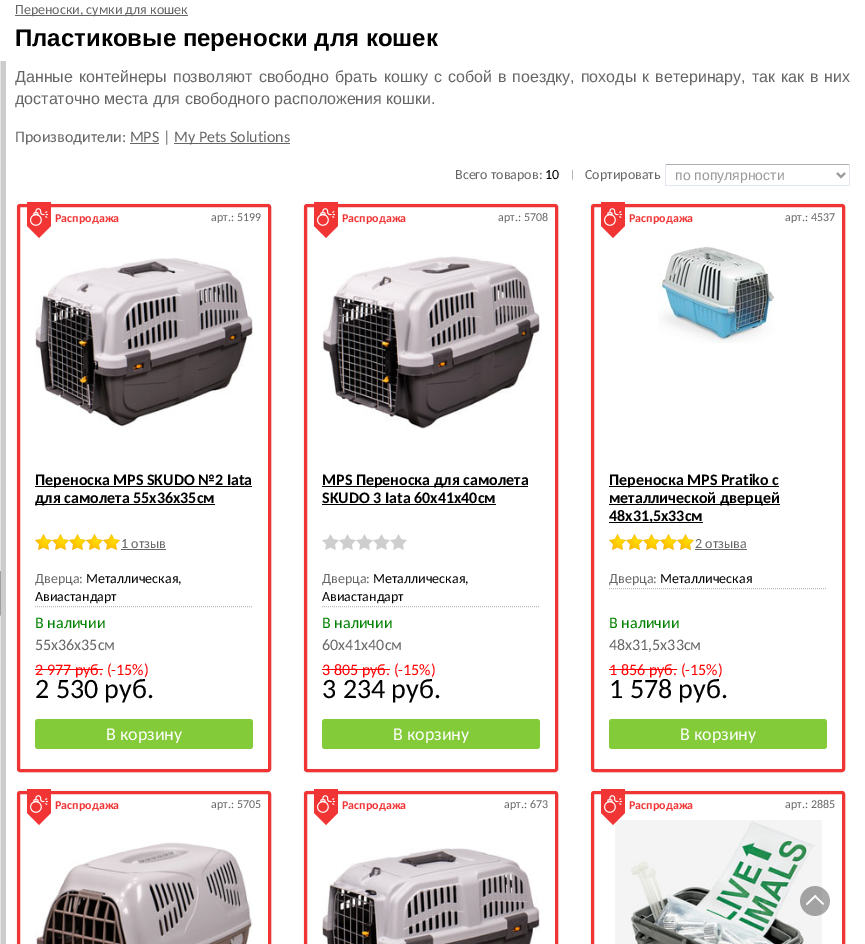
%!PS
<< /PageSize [865 944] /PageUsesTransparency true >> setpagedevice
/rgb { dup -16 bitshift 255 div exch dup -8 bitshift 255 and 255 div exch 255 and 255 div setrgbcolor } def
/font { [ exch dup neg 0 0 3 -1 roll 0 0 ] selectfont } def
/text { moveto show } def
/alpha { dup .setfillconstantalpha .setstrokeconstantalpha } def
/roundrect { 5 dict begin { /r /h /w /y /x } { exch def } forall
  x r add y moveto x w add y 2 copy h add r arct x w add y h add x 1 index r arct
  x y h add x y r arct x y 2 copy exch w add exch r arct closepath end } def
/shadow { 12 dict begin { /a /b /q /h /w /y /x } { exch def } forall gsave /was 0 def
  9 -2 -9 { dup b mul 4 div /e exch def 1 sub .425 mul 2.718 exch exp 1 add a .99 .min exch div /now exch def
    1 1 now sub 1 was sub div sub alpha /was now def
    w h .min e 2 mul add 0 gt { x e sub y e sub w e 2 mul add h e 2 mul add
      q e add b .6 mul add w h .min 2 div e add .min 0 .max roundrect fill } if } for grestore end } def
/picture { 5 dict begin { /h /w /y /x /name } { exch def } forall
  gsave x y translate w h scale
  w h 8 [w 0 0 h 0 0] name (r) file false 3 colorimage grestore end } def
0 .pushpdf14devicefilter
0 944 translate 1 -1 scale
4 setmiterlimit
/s1 { /Carlito-Regular 14 font 16#666666 rgb } def
/s2 { /LiberationSans-Bold 24 font 16#000000 rgb } def
/s3 { /LiberationSans-Regular 16 font 16#666666 rgb } def
/s4 { /Carlito-Regular 16 font 16#666666 rgb } def
/s5 { /Carlito-Regular 14 font 16#000000 rgb } def
/s6 { /Carlito-Regular 11 font 16#999999 rgb } def
/s7 { /LiberationSans-Regular 14 font 16#999999 rgb } def
/s8 { /Carlito-Regular 12 font 16#666666 rgb } def
/s9 { /Carlito-Bold 16 font 16#000000 rgb } def
/s10 { /Carlito-Regular 16 font 16#008000 rgb } def
/s11 { /Carlito-Regular 16 font 16#FF0000 rgb } def
/s12 { /Carlito-Regular 28 font 16#000000 rgb } def
/s13 { /Carlito-Regular 18 font 16#FFFFFF rgb } def
/s14 { /Carlito-Bold 12 font 16#F13434 rgb } def
16#FFFFFF rgb
0 0 865 944 rectfill
16#E3E3E3 rgb
0 61 1 883 rectfill
16#CCCCCC rgb
1 61 5 883 rectfill
16#EBEBEB rgb
0 165 1 1 rectfill
0 210 1 1 rectfill
0 255 1 1 rectfill
0 300 1 1 rectfill
0 345 1 1 rectfill
0 390 1 1 rectfill
0 435 1 1 rectfill
0 480 1 1 rectfill
0 525 1 1 rectfill
0 570 1 1 rectfill
16#9F9F9F rgb
0 571 1 45 rectfill
16#BCBCBC rgb
0 615 1 1 rectfill
16#EBEBEB rgb
0 660 1 1 rectfill
0 705 1 1 rectfill
0 750 1 1 rectfill
0 795 1 1 rectfill
0 840 1 1 rectfill
0 885 1 1 rectfill
0 930 1 1 rectfill
16#666666 rgb
15 15 173 1 rectfill
s1
(Переноски, сумки для кошек) 15 14 text
s2
(Пластиковые переноски для кошек) 15 46 text
/LiberationSans-Regular 16 font
16#666666 rgb
15 82 moveto 1.6 0 32 (Данные контейнеры позволяют свободно брать кошку с собой в поездку, походы к ветеринару, так как в них) widthshow
(достаточно места для свободного расположения кошки.) 15 104 text
s4
(Производители: MPS |) 15 142 text
174 143 116 1 rectfill
(My Pets Solutions) 174 142 text
130 143 29 1 rectfill
s1
(Всего товаров:) 455 179 text
s5
(10) 545 179 text
s6
(|) 570 178 text
s1
(Сортировать) 585 179 text
16#AAADB2 rgb
665 164 185 1 rectfill
16#E3E3EB rgb
849 164 1 22 rectfill
16#E2E9EF rgb
665 185 185 1 rectfill
16#E3E3EB rgb
665 164 1 22 rectfill
16#999999 rgb
2 setlinewidth
837 173 moveto 841 177 lineto 845 173 lineto stroke
s7
(по популярности) 675 180 text
16#DDDDDD rgb
17 204 254 568 3 1 1 shadow
16#FFFFFF rgb
18.5 205.5 251 565 1.5 roundrect gsave fill grestore
16#F13434 rgb
3 setlinewidth
stroke
27 202 24 24 rectfill
(pic1.raw) 30 208 18 18 picture
27 226 moveto 51 226 lineto 39 238 lineto closepath fill
s8
(арт.: 5199) 211 221 text
16#000000 rgb
35 486 217 1 rectfill
s9
(Переноска MPS SKUDO №2 Iata) 35 485 text
35 504 180 1 rectfill
(для самолета 55х36х35см) 35 503 text
(pic2.raw) 35 534 85 16 picture
(pic3.raw) 35 534 85 16 picture
s1
(1 отзыв) 121 548 text
121 549 45 1 rectfill
16#BBBBBB rgb
1 setlinewidth
[1 1] 0 setdash
35 606.5 moveto 253 606.5 lineto stroke
s1
(Дверца:) 35 583 text
s5
(Металлическая,) 86 583 text
(Авиастандарт) 35 601 text
s10
(В наличии) 35 628 text
s4
(55х36х35см) 35 650 text
s11
(2 977 руб. \(-15%\)) 35 675 text
35 669 68 1 rectfill
s12
(2 530 руб.) 35 698 text
16#83CB39 rgb
35 719 218 30 3 roundrect fill
s13
(В корзину) 106 740 text
s14
(Распродажа) 55 222 text
(pic4.raw) 35 258 218 170 picture
16#DDDDDD rgb
304 204 254 568 3 1 1 shadow
16#FFFFFF rgb
305.5 205.5 251 565 1.5 roundrect gsave fill grestore
16#F13434 rgb
3 setlinewidth
[] 0 setdash
stroke
314 202 24 24 rectfill
(pic1.raw) 317 208 18 18 picture
314 226 moveto 338 226 lineto 326 238 lineto closepath fill
s8
(арт.: 5708) 498 221 text
16#000000 rgb
322 486 206 1 rectfill
s9
(MPS Переноска для самолета) 322 485 text
(SKUDO 3 Iata 60x41x40см) 322 503 text
322 504 174 1 rectfill
(pic2.raw) 322 534 85 16 picture
16#BBBBBB rgb
1 setlinewidth
[1 1] 0 setdash
322 606.5 moveto 540 606.5 lineto stroke
s1
(Дверца:) 322 583 text
s5
(Металлическая,) 373 583 text
(Авиастандарт) 322 601 text
s10
(В наличии) 322 628 text
s4
(60x41x40см) 322 650 text
s11
(3 805 руб. \(-15%\)) 322 675 text
322 669 68 1 rectfill
s12
(3 234 руб.) 322 698 text
16#83CB39 rgb
322 719 218 30 3 roundrect fill
s13
(В корзину) 393 740 text
s14
(Распродажа) 342 222 text
(pic5.raw) 322 256 218 173 picture
16#DDDDDD rgb
591 204 254 568 3 1 1 shadow
16#FFFFFF rgb
592.5 205.5 251 565 1.5 roundrect gsave fill grestore
16#F13434 rgb
3 setlinewidth
[] 0 setdash
stroke
601 202 24 24 rectfill
(pic1.raw) 604 208 18 18 picture
601 226 moveto 625 226 lineto 613 238 lineto closepath fill
s8
(арт.: 4537) 785 221 text
16#000000 rgb
609 486 170 1 rectfill
s9
(Переноска MPS Pratiko с) 609 485 text
609 504 171 1 rectfill
(металлической дверцей) 609 503 text
609 522 94 1 rectfill
(48x31,5x33см) 609 521 text
(pic2.raw) 609 534 85 16 picture
(pic3.raw) 609 534 85 16 picture
s1
(2 отзыва) 695 548 text
695 549 52 1 rectfill
16#BBBBBB rgb
1 setlinewidth
[1 1] 0 setdash
609 588.5 moveto 827 588.5 lineto stroke
s1
(Дверца:) 609 583 text
s5
(Металлическая) 660 583 text
s10
(В наличии) 609 628 text
s4
(48x31,5x33см) 609 650 text
s11
(1 856 руб. \(-15%\)) 609 675 text
609 669 68 1 rectfill
s12
(1 578 руб.) 609 698 text
16#83CB39 rgb
609 719 218 30 3 roundrect fill
s13
(В корзину) 680 740 text
s14
(Распродажа) 629 222 text
(pic6.raw) 658 246 117 99 picture
16#DDDDDD rgb
17 791 254 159 3 1 1 shadow
16#FFFFFF rgb
18.5 792.5 251 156 1.5 roundrect gsave fill grestore
16#F13434 rgb
3 setlinewidth
[] 0 setdash
stroke
27 789 24 24 rectfill
(pic1.raw) 30 795 18 18 picture
27 813 moveto 51 813 lineto 39 825 lineto closepath fill
(Распродажа) 55 809 text
s8
(арт.: 5705) 211 808 text
(pic7.raw) 35 842 218 102 picture
16#DDDDDD rgb
304 791 254 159 3 1 1 shadow
16#FFFFFF rgb
305.5 792.5 251 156 1.5 roundrect gsave fill grestore
16#F13434 rgb
stroke
314 789 24 24 rectfill
(pic1.raw) 317 795 18 18 picture
314 813 moveto 338 813 lineto 326 825 lineto closepath fill
s14
(Распродажа) 342 809 text
s8
(арт.: 673) 504 808 text
(pic8.raw) 322 848 218 96 picture
16#DDDDDD rgb
591 791 254 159 3 1 1 shadow
16#FFFFFF rgb
592.5 792.5 251 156 1.5 roundrect gsave fill grestore
16#F13434 rgb
stroke
601 789 24 24 rectfill
(pic1.raw) 604 795 18 18 picture
(pic9.raw) 615 820 207 124 picture
601 813 moveto 625 813 lineto 613 825 lineto closepath fill
s14
(Распродажа) 629 809 text
s8
(арт.: 2885) 785 808 text
(pic10.raw) 800 886 30 30 picture
.poppdf14devicefilter showpage
